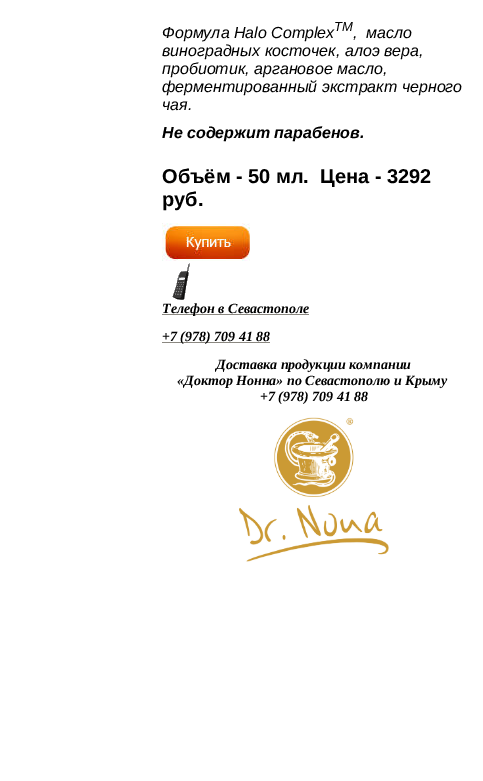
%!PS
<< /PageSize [483 781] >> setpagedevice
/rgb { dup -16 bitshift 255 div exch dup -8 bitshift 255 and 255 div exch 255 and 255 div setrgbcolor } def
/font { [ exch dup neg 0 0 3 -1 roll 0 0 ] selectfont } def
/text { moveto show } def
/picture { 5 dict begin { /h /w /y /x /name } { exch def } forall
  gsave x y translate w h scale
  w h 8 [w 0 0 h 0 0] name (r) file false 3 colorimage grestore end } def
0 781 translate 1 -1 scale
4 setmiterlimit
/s1 { /LiberationSans-Italic 16 font 16#000000 rgb } def
/s2 { /LiberationSans-Italic 13 font 16#000000 rgb } def
/s3 { /LiberationSans-BoldItalic 16 font 16#000000 rgb } def
/s4 { /LiberationSans-Bold 20 font 16#000000 rgb } def
/s5 { /LiberationSerif-BoldItalic 14 font 16#000000 rgb } def
16#FFFFFF rgb
0 0 483 781 rectfill
s1
(Формула Halo Complex) 162 38 text
s2
(TM) 334 31 text
s1
(,  масло) 353 38 text
(виноградных косточек, алоэ вера,) 162 56 text
(пробиотик, аргановое масло,) 162 74 text
(ферментированный экстракт черного) 162 92 text
(чая.) 162 110 text
s3
(Не содержит парабенов.) 162 138 text
s4
(Объём - 50 мл.  Цена - 3292) 162 183 text
(руб.) 162 206 text
(pic1.raw) 162 223 88 38 picture
(pic2.raw) 172 263 18 37 picture
16#8B8881 rgb
162 314 147 1 rectfill
s5
(Телефон в Севастополе) 162 313 text
16#8B8881 rgb
162 342 108 1 rectfill
s5
(+7 \(978\) 709 41 88) 162 341 text
(Доставка продукции компании) 216 369 text
(«Доктор Нонна» по Севастополю и Крыму) 177 385 text
(+7 \(978\) 709 41 88) 260 401 text
(pic3.raw) 239 417 150 145 picture
showpage
